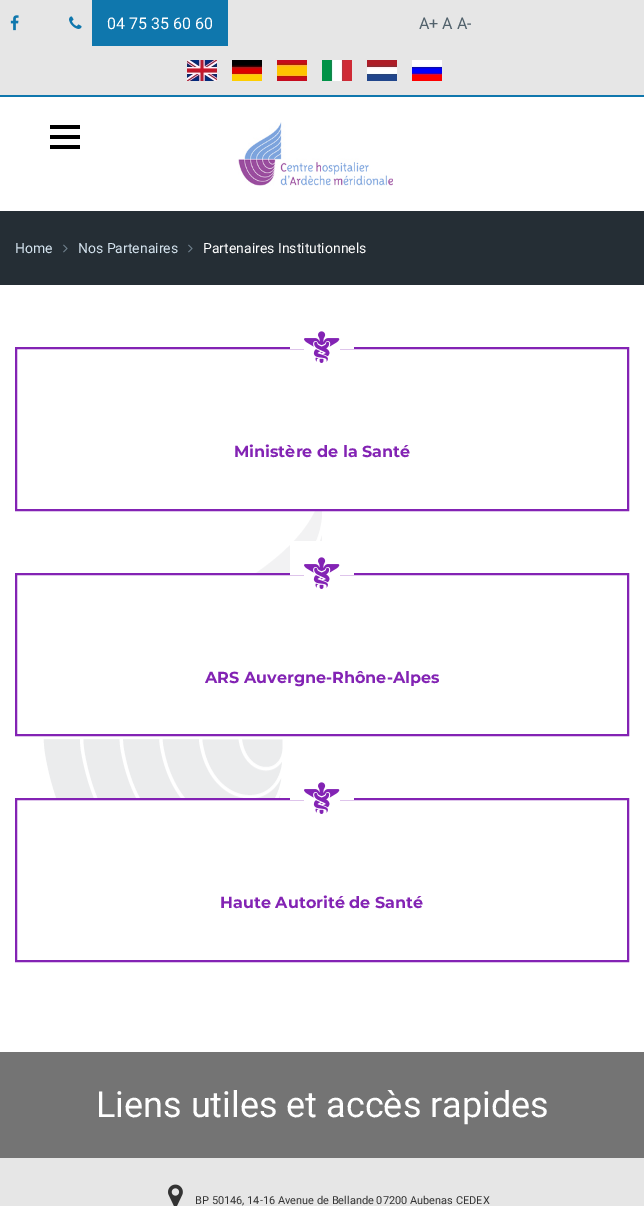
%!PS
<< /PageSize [644 1206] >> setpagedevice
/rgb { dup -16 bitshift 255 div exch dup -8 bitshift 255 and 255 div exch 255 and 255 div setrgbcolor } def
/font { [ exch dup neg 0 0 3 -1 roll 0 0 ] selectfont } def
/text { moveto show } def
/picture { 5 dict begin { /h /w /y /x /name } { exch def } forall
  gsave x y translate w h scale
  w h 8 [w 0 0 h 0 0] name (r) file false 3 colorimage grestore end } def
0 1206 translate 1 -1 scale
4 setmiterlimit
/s1 { /Roboto-Regular 16 font 16#FFFFFF rgb } def
/s2 { /Roboto-Regular 16 font 16#51616B rgb } def
/s3 { /Roboto-Regular 14 font 16#D4E3EE rgb } def
/s4 { /Roboto-Regular 14 font 16#FFFFFF rgb } def
/s5 { /Montserrat-Bold 16 font 16#8323B4 rgb } def
/s6 { /Roboto-Regular 36 font 16#FFFFFF rgb } def
/s7 { /Roboto-Regular 11 font 16#333333 rgb } def
16#FFFFFF rgb
0 0 644 1206 rectfill
16#E6E6E6 rgb
0 0 644 95 rectfill
16#0F77AD rgb
0 95 644 2 rectfill
(pic1.raw) 10 15 9 16 picture
(pic2.raw) 69 16 13 13 picture
92 0 136 46 rectfill
s1
(04 75 35 60 60) 107 29 text
s2
(A+ A A-) 419 29 text
(pic3.raw) 187 60 30 21 picture
(pic4.raw) 232 60 30 21 picture
(pic5.raw) 277 60 30 21 picture
(pic6.raw) 322 60 30 21 picture
(pic7.raw) 367 60 30 21 picture
(pic8.raw) 412 60 30 21 picture
16#000000 rgb
50 135 30 4 rectfill
50 125 30 4 rectfill
50 145 30 4 rectfill
(pic9.raw) 238 122 155 64 picture
16#252E35 rgb
0 211 644 74 rectfill
s3
(Home) 15 253 text
(pic10.raw) 63 244 5 9 picture
(Nos Partenaires) 78 253 text
(pic10.raw) 188 244 5 9 picture
s4
(Partenaires Institutionnels) 203 253 text
(pic11.raw) 43 511 279 287 picture
16#8323B4 rgb
2 setlinewidth
16 348 612 162 rectstroke
16#FFFFFF rgb
290 347 64 2 rectfill
(pic12.raw) 304 331 36 32 picture
s5
(Ministère de la Santé) 234 457 text
16#FFFFFF rgb
83 575 239 159 rectfill
16#8323B4 rgb
16 574 612 161 rectstroke
16#FFFFFF rgb
290 541 64 34 rectfill
(pic12.raw) 304 557 36 32 picture
s5
(ARS Auvergne-Rhône-Alpes) 205 683 text
16 799 612 162 rectstroke
16#FFFFFF rgb
290 798 64 2 rectfill
(pic12.raw) 304 782 36 32 picture
s5
(Haute Autorité de Santé) 220 908 text
16#747474 rgb
0 1052 644 106 rectfill
s6
(Liens utiles et accès rapides) 96 1117 text
16#E6E6E6 rgb
0 1158 644 48 rectfill
(pic13.raw) 168 1184 15 22 picture
s7
(BP 50146, 14-16 Avenue de Bellande 07200 Aubenas CEDEX) 195 1204 text
showpage
